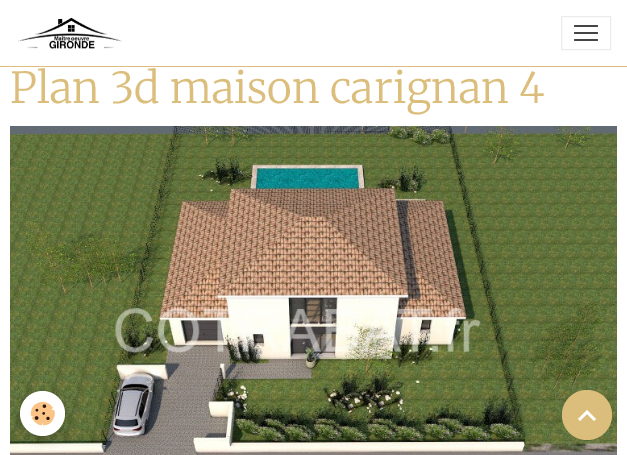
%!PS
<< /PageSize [627 455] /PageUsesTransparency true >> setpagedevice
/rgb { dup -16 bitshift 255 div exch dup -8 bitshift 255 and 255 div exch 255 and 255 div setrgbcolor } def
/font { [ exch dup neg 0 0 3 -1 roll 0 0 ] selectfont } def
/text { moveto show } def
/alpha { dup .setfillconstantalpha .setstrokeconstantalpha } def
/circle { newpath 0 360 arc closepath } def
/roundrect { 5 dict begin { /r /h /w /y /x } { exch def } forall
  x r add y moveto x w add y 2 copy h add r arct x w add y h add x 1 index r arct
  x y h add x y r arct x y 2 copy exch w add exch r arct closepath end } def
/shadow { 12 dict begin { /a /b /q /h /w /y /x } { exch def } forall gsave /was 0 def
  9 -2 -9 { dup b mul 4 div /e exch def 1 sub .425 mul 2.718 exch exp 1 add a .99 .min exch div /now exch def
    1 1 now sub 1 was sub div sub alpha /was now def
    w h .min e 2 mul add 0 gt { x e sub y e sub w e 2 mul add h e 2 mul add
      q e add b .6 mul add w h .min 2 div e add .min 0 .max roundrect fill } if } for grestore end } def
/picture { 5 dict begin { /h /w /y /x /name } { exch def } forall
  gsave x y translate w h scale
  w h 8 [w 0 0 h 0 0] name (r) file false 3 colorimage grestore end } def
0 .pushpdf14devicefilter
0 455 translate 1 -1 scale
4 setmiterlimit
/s1 { /Merriweather-Light 42.7 font 16#DBBE7C rgb } def
16#FFFFFF rgb
0 0 627 455 rectfill
16#DBBE7C rgb
0 66 627 1 rectfill
(pic1.raw) 18 17 104 32 picture
16#ECECEC rgb
561.5 16.5 49 33 rectstroke
16#454545 rgb
574 25 24 2 1 roundrect fill
574 32 24 2 1 roundrect fill
574 39 24 2 1 roundrect fill
s1
(Plan 3d maison carignan 4) 10 103 text
(pic2.raw) 10 126 607 329 picture
16#000000 rgb
20 394 45 45 22.5 5 0.24 shadow
16#FFFFFF rgb
42.5 413.5 22.5 circle fill
(pic3.raw) 30 401 25 25 picture
16#DBBE7C rgb
587 415 25 circle fill
16#FFFFFF rgb
587 410 moveto 596 419 lineto 594 421 lineto 587 414 lineto 580 421 lineto 578 419 lineto closepath fill
.poppdf14devicefilter showpage
